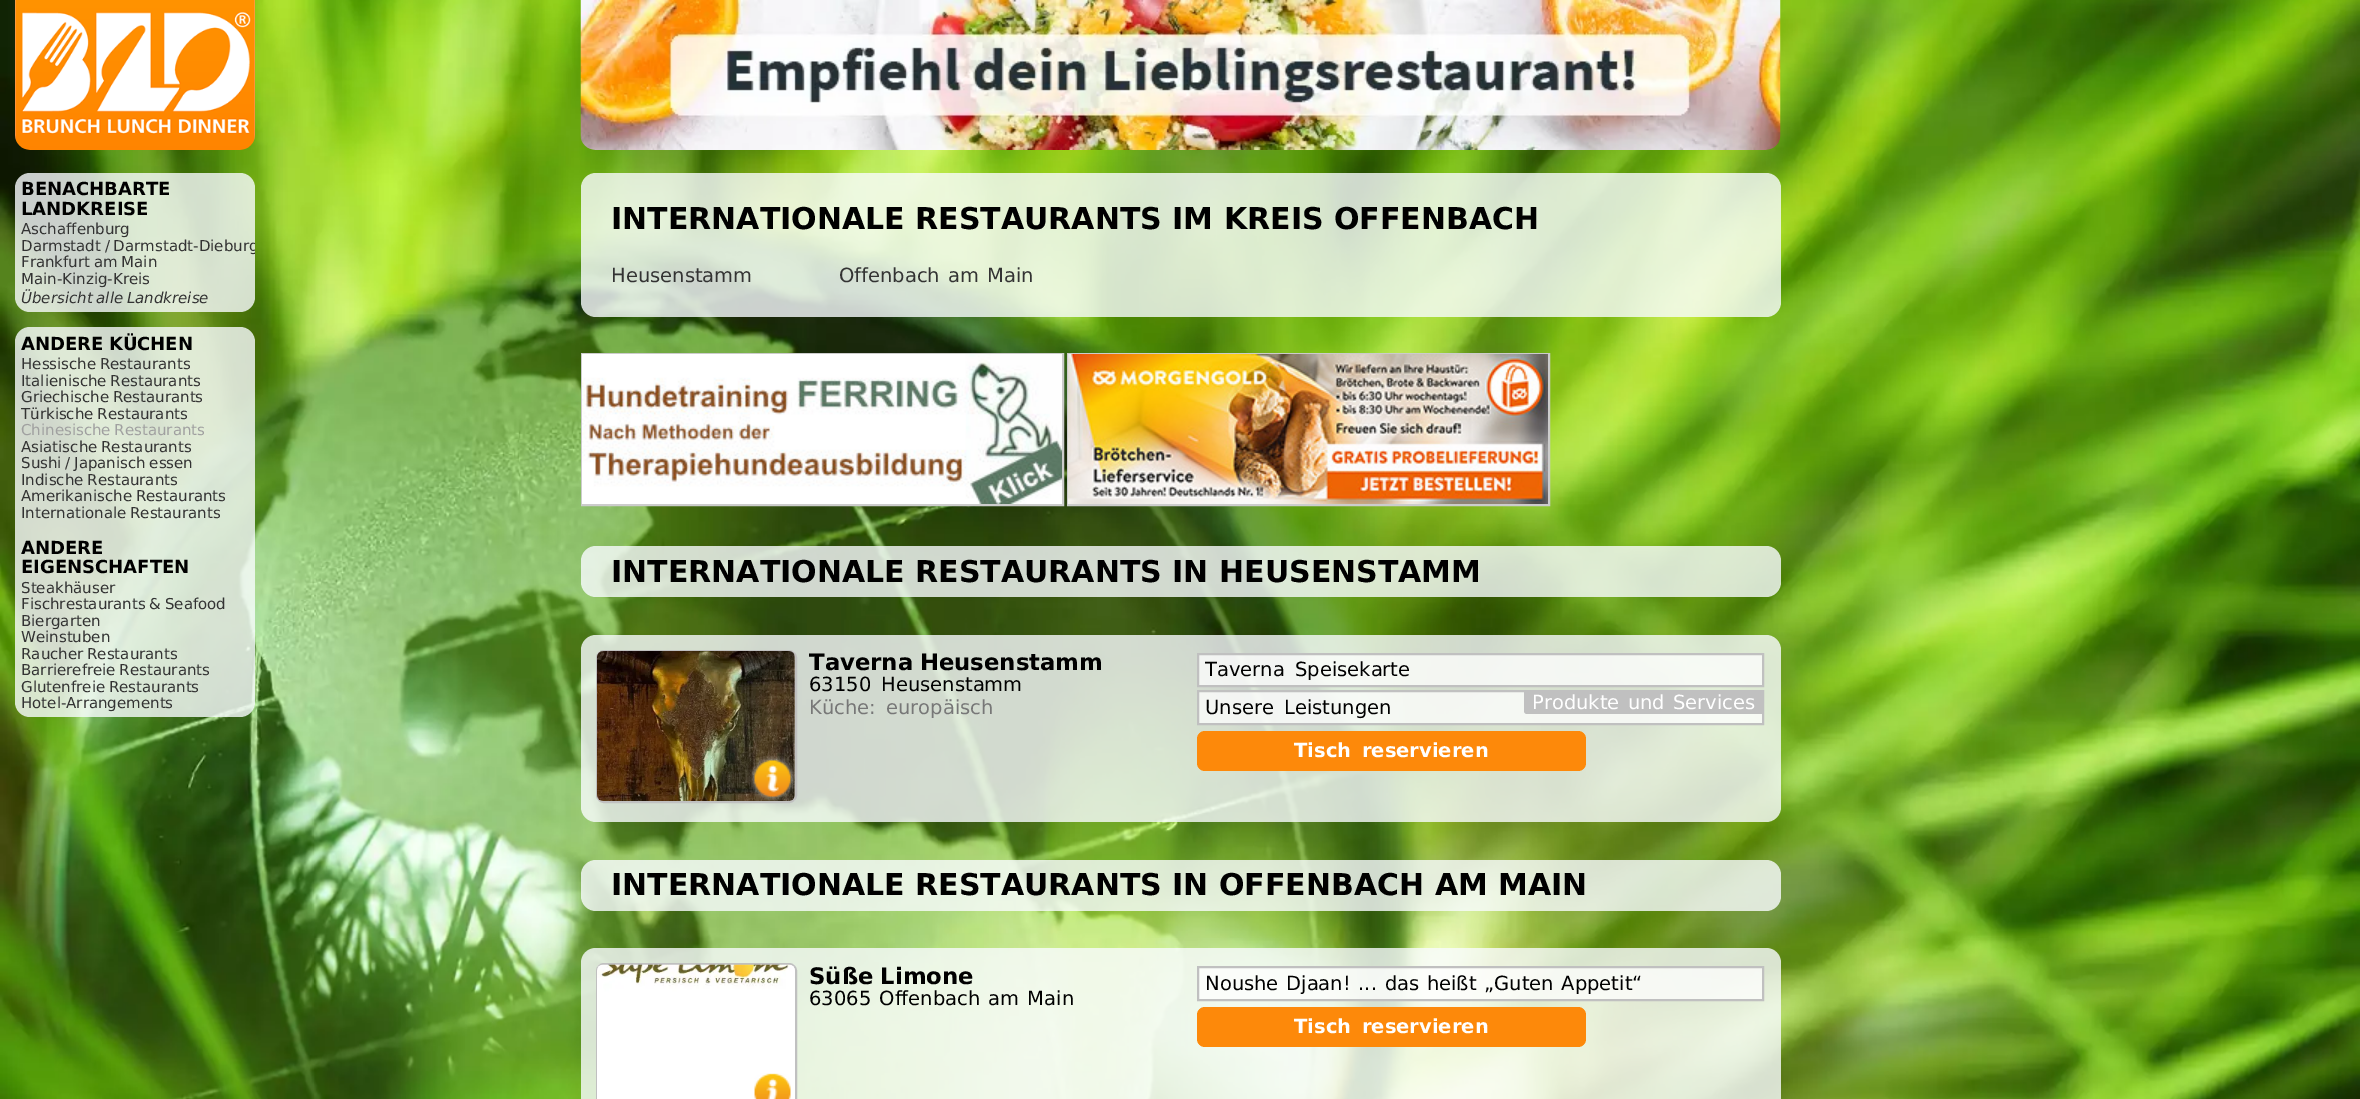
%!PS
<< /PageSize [2360 1099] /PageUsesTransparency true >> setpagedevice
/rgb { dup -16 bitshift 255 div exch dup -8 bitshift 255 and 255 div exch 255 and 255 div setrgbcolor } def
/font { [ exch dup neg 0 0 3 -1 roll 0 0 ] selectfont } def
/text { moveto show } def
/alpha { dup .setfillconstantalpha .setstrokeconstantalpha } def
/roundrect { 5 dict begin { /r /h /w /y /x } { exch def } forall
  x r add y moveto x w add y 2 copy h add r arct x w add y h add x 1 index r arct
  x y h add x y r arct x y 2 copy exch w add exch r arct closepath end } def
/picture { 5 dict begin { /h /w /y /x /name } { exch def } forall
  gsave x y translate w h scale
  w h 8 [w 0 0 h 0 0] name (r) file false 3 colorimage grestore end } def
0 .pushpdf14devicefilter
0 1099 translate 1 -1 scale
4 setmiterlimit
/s1 { /DejaVuSans-Bold 18 font 16#000000 rgb } def
/s2 { /DejaVuSans-Regular 15 font 16#333333 rgb } def
/s3 { /DejaVuSans-Bold 30 font 16#000000 rgb } def
/s4 { /DejaVuSans-Regular 19.5 font 16#333333 rgb } def
16#FFFFFF rgb
0 0 2360 1099 rectfill
(pic1.raw) 0 0 2360 1099 picture
(pic2.raw) 15 0 240 150 picture
(pic3.raw) 580 0 1201 150 picture
0.8 alpha
16#F9FCFF rgb
15 173 240 139 15 roundrect fill
1 alpha
s1
(BENACHBARTE) 21 195 text
(LANDKREISE) 21 215 text
s2
(Aschaffenburg) 21 234 text
gsave
0 158 255 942 rectclip
21 251 moveto -1 0 32 (Darmstadt / Darmstadt-Dieburg) widthshow
grestore
21 267 moveto -1 0 32 (Frankfurt am Main) widthshow
(Main-Kinzig-Kreis) 21 284 text
/DejaVuSans-Italic 15 font
21 303 moveto -1 0 32 (Übersicht alle Landkreise) widthshow
0.8 alpha
16#F9FCFF rgb
15 327 240 390 15 roundrect fill
/DejaVuSans-Bold 18 font
1 alpha
16#000000 rgb
21 350 moveto -1 0 32 (ANDERE KÜCHEN) widthshow
/DejaVuSans-Regular 15 font
16#333333 rgb
21 369 moveto -1 0 32 (Hessische Restaurants) widthshow
21 386 moveto -1 0 32 (Italienische Restaurants) widthshow
21 402 moveto -1 0 32 (Griechische Restaurants) widthshow
21 419 moveto -1 0 32 (Türkische Restaurants) widthshow
16#A0A0A0 rgb
21 435 moveto -1 0 32 (Chinesische Restaurants) widthshow
16#333333 rgb
21 452 moveto -1 0 32 (Asiatische Restaurants) widthshow
21 468 moveto -1 0 32 (Sushi / Japanisch essen) widthshow
21 485 moveto -1 0 32 (Indische Restaurants) widthshow
21 501 moveto -1 0 32 (Amerikanische Restaurants) widthshow
21 518 moveto -1 0 32 (Internationale Restaurants) widthshow
s1
(ANDERE) 21 554 text
(EIGENSCHAFTEN) 21 573 text
s2
(Steakhäuser) 21 593 text
21 609 moveto -1 0 32 (Fischrestaurants & Seafood) widthshow
(Biergarten) 21 626 text
(Weinstuben) 21 642 text
21 659 moveto -1 0 32 (Raucher Restaurants) widthshow
21 675 moveto -1 0 32 (Barrierefreie Restaurants) widthshow
21 692 moveto -1 0 32 (Glutenfreie Restaurants) widthshow
(Hotel-Arrangements) 21 708 text
0.8 alpha
16#F9FCFF rgb
581 173 1200 144 15 roundrect fill
1 alpha
s3
(INTERNATIONALE RESTAURANTS IM KREIS OFFENBACH) 611 229 text
s4
(Heusenstamm) 611 282 text
839 282 moveto 2 0 32 (Offenbach am Main) widthshow
16#CCCCCC rgb
2 setlinewidth
582 354 481 151 rectstroke
(pic4.raw) 582 354 480 150 picture
1068 354 481 151 rectstroke
(pic5.raw) 1068 354 480 150 picture
0.8 alpha
16#F9FCFF rgb
581 546 1200 51 15 roundrect fill
1 alpha
s3
(INTERNATIONALE RESTAURANTS IN HEUSENSTAMM) 611 582 text
0.8 alpha
16#F9FCFF rgb
581 635 1200 187 15 roundrect fill
1 alpha
16#C0C0C0 rgb
597 651 199 151 7 roundrect stroke
(pic6.raw) 597 651 198 150 picture
(pic7.raw) 749 755 46 46 picture
/DejaVuSans-Bold 22.75 font
16#000000 rgb
809 670 moveto -1 0 32 (Taverna Heusenstamm) widthshow
/DejaVuSans-Regular 19.5 font
809 691 moveto 4 0 32 (63150 Heusenstamm) widthshow
16#777777 rgb
809 714 moveto 4 0 32 (Küche: europäisch) widthshow
0.75 alpha
16#FFFFFF rgb
1198 654 moveto 1763 654 lineto 1763 686 lineto 1198 686 lineto closepath fill
1 alpha
16#C0C0C0 rgb
1198 654 moveto 1763 654 lineto 1763 686 lineto 1198 686 lineto closepath stroke
16#000000 rgb
1205 676 moveto 4 0 32 (Taverna Speisekarte) widthshow
0.75 alpha
16#FFFFFF rgb
1198 691 moveto 1763 691 lineto 1763 724 lineto 1198 724 lineto closepath fill
1 alpha
16#C0C0C0 rgb
1198 691 moveto 1763 691 lineto 1763 724 lineto 1198 724 lineto closepath stroke
16#000000 rgb
1205 714 moveto 4 0 32 (Unsere Leistungen) widthshow
16#C0C0C0 rgb
1524 692 moveto 1763 692 lineto 1763 714 lineto 1527 714 lineto 1525.5 714 1524 712.5 1524 711 curveto closepath fill
16#FFFFFF rgb
1532 709 moveto 2 0 32 (Produkte und Services) widthshow
16#FD890A rgb
1197 731 389 40 8 roundrect fill
/DejaVuSans-Bold 19.5 font
16#FFFFFF rgb
1294 757 moveto 4 0 32 (Tisch reservieren) widthshow
0.8 alpha
16#F9FCFF rgb
581 860 1200 51 15 roundrect fill
1 alpha
s3
(INTERNATIONALE RESTAURANTS IN OFFENBACH AM MAIN) 611 895 text
0.8 alpha
16#F9FCFF rgb
596 948 moveto 1766 948 lineto 1774.5 948 1781 954.5 1781 963 curveto 1781 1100 lineto 581 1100 lineto 581 963 lineto 581 954.5 587.5 948 596 948 curveto closepath fill
1 alpha
16#C0C0C0 rgb
597 964 199 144 7 roundrect stroke
(pic8.raw) 597 964 198 135 picture
(pic9.raw) 754 1073 37 26 picture
/DejaVuSans-Bold 22.75 font
16#000000 rgb
809 984 moveto -1 0 32 (Süße Limone) widthshow
/DejaVuSans-Regular 19.5 font
809 1005 moveto 2 0 32 (63065 Offenbach am Main) widthshow
0.75 alpha
16#FFFFFF rgb
1198 967 moveto 1763 967 lineto 1763 1000 lineto 1198 1000 lineto closepath fill
1 alpha
16#C0C0C0 rgb
1198 967 moveto 1763 967 lineto 1763 1000 lineto 1198 1000 lineto closepath stroke
16#000000 rgb
1205 990 moveto 1.5 0 32 (Noushe Djaan! ... das heißt „Guten Appetit“) widthshow
16#FD890A rgb
1197 1007 389 40 8 roundrect fill
/DejaVuSans-Bold 19.5 font
16#FFFFFF rgb
1294 1033 moveto 4 0 32 (Tisch reservieren) widthshow
.poppdf14devicefilter showpage
